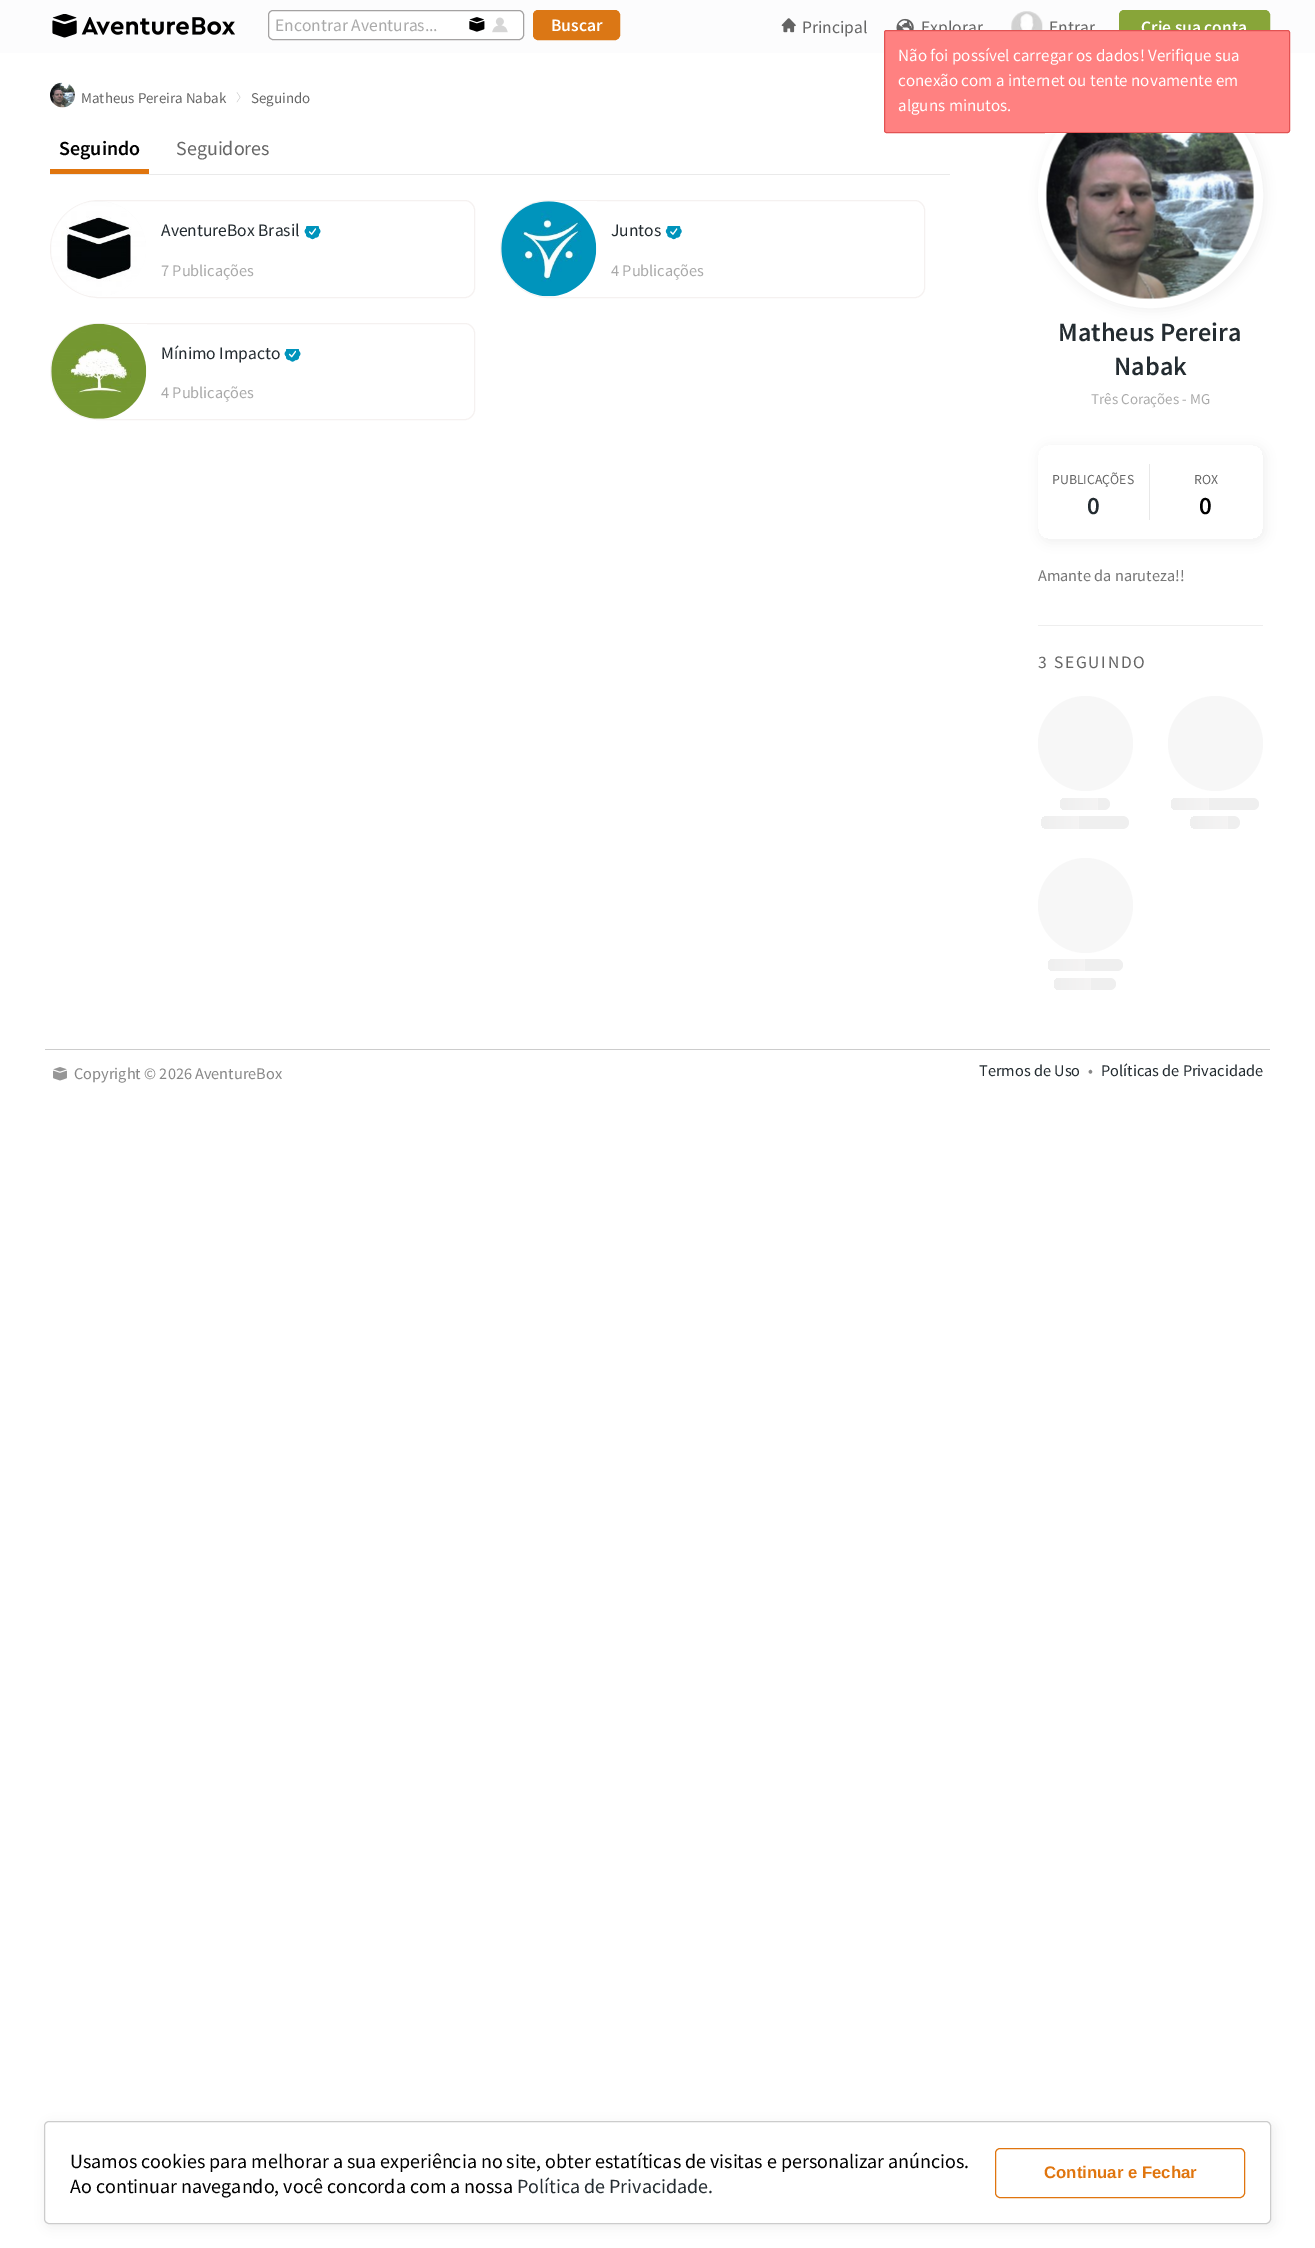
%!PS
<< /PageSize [1315 2248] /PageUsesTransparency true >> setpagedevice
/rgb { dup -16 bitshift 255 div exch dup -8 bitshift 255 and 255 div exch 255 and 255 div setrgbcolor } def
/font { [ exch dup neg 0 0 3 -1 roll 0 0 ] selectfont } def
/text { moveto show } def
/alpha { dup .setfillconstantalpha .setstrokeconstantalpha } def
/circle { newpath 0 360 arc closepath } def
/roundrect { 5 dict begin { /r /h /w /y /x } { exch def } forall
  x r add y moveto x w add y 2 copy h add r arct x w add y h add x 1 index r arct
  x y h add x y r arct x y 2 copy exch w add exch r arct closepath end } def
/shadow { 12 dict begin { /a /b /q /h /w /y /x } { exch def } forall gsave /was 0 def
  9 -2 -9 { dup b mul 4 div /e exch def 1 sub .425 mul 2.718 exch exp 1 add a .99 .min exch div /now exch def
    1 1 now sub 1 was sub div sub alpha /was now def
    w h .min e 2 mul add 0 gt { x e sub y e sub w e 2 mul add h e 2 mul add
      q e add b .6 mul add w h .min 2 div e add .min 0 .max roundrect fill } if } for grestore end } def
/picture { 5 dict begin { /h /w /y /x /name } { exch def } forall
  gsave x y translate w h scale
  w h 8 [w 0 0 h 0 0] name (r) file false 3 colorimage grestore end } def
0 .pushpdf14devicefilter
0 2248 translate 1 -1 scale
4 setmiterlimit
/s1 { /SourceSansPro-Regular 17.5 font 16#AAAAAA rgb } def
/s2 { /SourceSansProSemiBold-SemiBold 17.5 font 16#FFFFFF rgb } def
/s3 { /SourceSansPro-Regular 17.5 font 16#666666 rgb } def
/s4 { /SourceSansPro-Regular 17 font 16#FFFFFF rgb } def
/s5 { /SourceSansPro-Regular 15 font 16#666666 rgb } def
/s6 { /SourceSansProSemiBold-SemiBold 20 font 16#000000 rgb } def
/s7 { /SourceSansPro-Regular 20 font 16#666666 rgb } def
/s8 { /SourceSansPro-Regular 17.5 font 16#242C31 rgb } def
/s9 { /SourceSansPro-Regular 16.25 font 16#AAAAAA rgb } def
/s10 { /SourceSansProSemiBold-SemiBold 26.25 font 16#242C31 rgb } def
/s11 { /SourceSansPro-Regular 15 font 16#AAAAAA rgb } def
/s12 { /SourceSansPro-Regular 13.75 font 16#666666 rgb } def
/s13 { /SourceSansProSemiBold-SemiBold 25 font 16#242C31 rgb } def
/s14 { /SourceSansProSemiBold-SemiBold 25 font 16#000000 rgb } def
/s15 { /SourceSansPro-Regular 16.25 font 16#777777 rgb } def
/s16 { /SourceSansPro-Regular 16.25 font 16#888888 rgb } def
/s17 { /SourceSansPro-Regular 16.25 font 16#242C31 rgb } def
/s18 { /SourceSansPro-Regular 20 font 16#000000 rgb } def
/s19 { /SourceSansPro-Regular 20 font 16#242C31 rgb } def
/s20 { /LiberationSans-Bold 16.75 font 16#E0750E rgb } def
16#FFFFFF rgb
0 0 1315 2248 rectfill
16#FCFCFD rgb
0 0 1315 53 rectfill
(pic1.raw) 52 14 183 24 picture
16#FFFFFF rgb
268.5 10.5 255 29 4.5 roundrect gsave fill grestore
16#A4A2A2 rgb
stroke
s1
(Encontrar Aventuras...) 275 31 text
(pic2.raw) 469 17 16 15 picture
(pic3.raw) 492 17 16 16 picture
16#DB7715 rgb
533.5 10.5 86 29 4.5 roundrect gsave fill grestore
stroke
s2
(Buscar) 551 31 text
(pic4.raw) 781 18 15 15 picture
s3
(Principal) 802 33 text
(pic5.raw) 896 18 18 12 picture
(Explorar) 921 33 text
(pic6.raw) 1011 11 32 19 picture
(Entrar) 1049 33 text
16#88A539 rgb
1119.5 10.5 150 32 4.5 roundrect gsave fill grestore
stroke
s2
(Crie sua conta) 1141 33 text
16#000000 rgb
1039 84 227 227 113.5 6 0.06 shadow
16#F7F7F7 rgb
1150.5 195.5 108 circle gsave fill grestore
16#FFFFFF rgb
9 setlinewidth
stroke
16#FF8181 rgb
884.5 30.5 405 102 2 roundrect gsave fill grestore
16#E25353 rgb
1 setlinewidth
stroke
s4
(Não foi possível carregar os dados! Verifique sua) 898 61 text
(conexão com a internet ou tente novamente em) 898 86 text
(alguns minutos.) 898 111 text
(pic7.raw) 50 82 25 26 picture
s5
(Matheus Pereira Nabak) 81 103 text
(pic8.raw) 236 92 5 11 picture
(Seguindo) 251 103 text
16#EAEAEA rgb
50 174 900 1 rectfill
16#E0750E rgb
50 169 99 5 rectfill
s6
(Seguindo) 59 155 text
s7
(Seguidores) 176 155 text
16#F5F1F0 rgb
99 200.5 moveto 465 200.5 lineto 470 200.5 474.5 205 474.5 210 curveto 474.5 288 lineto 474.5 293 470 297.5 465 297.5 curveto 99 297.5 lineto 72 297.5 50.5 276 50.5 249 curveto 50.5 222 72 200.5 99 200.5 curveto closepath stroke
16#F7F7F7 rgb
98.5 248.5 47.5 circle fill
(pic9.raw) 51 202 95 94 picture
s8
(AventureBox Brasil) 161 236 text
(pic10.raw) 304 226 17 14 picture
s9
(7 Publicações) 161 276 text
16#F5F1F0 rgb
549 200.5 moveto 915 200.5 lineto 920 200.5 924.5 205 924.5 210 curveto 924.5 288 lineto 924.5 293 920 297.5 915 297.5 curveto 549 297.5 lineto 522 297.5 500.5 276 500.5 249 curveto 500.5 222 522 200.5 549 200.5 curveto closepath stroke
16#F7F7F7 rgb
548.5 248.5 47.5 circle fill
(pic11.raw) 501 201 96 96 picture
s8
(Juntos) 611 236 text
(pic12.raw) 665 226 17 14 picture
s9
(4 Publicações) 611 276 text
16#F5F1F0 rgb
98.5 323.5 moveto 465 323.5 lineto 470 323.5 474.5 328 474.5 333 curveto 474.5 410 lineto 474.5 415 470 419.5 465 419.5 curveto 98.5 419.5 lineto 72 419.5 50.5 398 50.5 371.5 curveto 50.5 345 72 323.5 98.5 323.5 curveto closepath stroke
16#F7F7F7 rgb
98.5 371.5 47.5 circle fill
(pic13.raw) 51 323 96 96 picture
s8
(Mínimo Impacto) 161 359 text
(pic14.raw) 284 349 17 13 picture
s9
(4 Publicações) 161 398 text
(pic15.raw) 1045 133 210 167 picture
s10
(Matheus Pereira) 1058 341 text
(Nabak) 1114 375 text
s11
(Três Corações - MG) 1091 404 text
gsave
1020 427 moveto 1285 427 lineto 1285 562 lineto 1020 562 lineto closepath 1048 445 moveto 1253 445 lineto 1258.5 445 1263 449.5 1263 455 curveto 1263 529 lineto 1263 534.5 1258.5 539 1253 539 curveto 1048 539 lineto 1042.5 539 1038 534.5 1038 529 curveto 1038 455 lineto 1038 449.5 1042.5 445 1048 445 curveto closepath eoclip newpath
16#000000 rgb
1039 446 227 97 11 6 0.06 shadow
grestore
16#E8E8E8 rgb
1149 464 1 56 rectfill
s12
(PUBLICAÇÕES) 1052 484 text
s13
(0) 1087 514 text
s12
(ROX) 1194 484 text
s14
(0) 1199 514 text
s15
(Amante da naruteza!!) 1038 581 text
16#EEEEEE rgb
1038 625 225 1 rectfill
/SourceSansPro-Regular 17.5 font
16#666666 rgb
1038 668 moveto 1.75 0 (3 SEGUINDO) ashow
16#F7F7F7 rgb
1085.5 743.5 47.5 circle fill
16#EFEFEF rgb
1060 798 50 12 6 roundrect fill
gsave 1066 798 moveto 1098 798 lineto 1098 810 lineto 1066 810 lineto 1062.5 810 1060 807.5 1060 804 curveto 1060 800.5 1062.5 798 1066 798 curveto closepath clip newpath
<< /ShadingType 2 /ColorSpace /DeviceRGB /Coords [1060 804 1310 804] /Extend [true true] /Function << /FunctionType 3 /Domain [0 1] /Functions [<< /FunctionType 2 /Domain [0 1] /C0 [0.937 0.937 0.937] /C1 [0.969 0.965 0.965] /N 1 >> << /FunctionType 2 /Domain [0 1] /C0 [0.969 0.965 0.965] /C1 [0.937 0.937 0.937] /N 1 >>] /Bounds [0.2] /Encode [0 1 0 1] >> >> shfill grestore
1041 816 88 13 6.5 roundrect fill
gsave 1047.5 816 moveto 1079 816 lineto 1079 829 lineto 1047.5 829 lineto 1044 829 1041 826 1041 822.5 curveto 1041 819 1044 816 1047.5 816 curveto closepath clip newpath
<< /ShadingType 2 /ColorSpace /DeviceRGB /Coords [1041 823 1291 823] /Extend [true true] /Function << /FunctionType 3 /Domain [0 1] /Functions [<< /FunctionType 2 /Domain [0 1] /C0 [0.937 0.937 0.937] /C1 [0.969 0.965 0.965] /N 1 >> << /FunctionType 2 /Domain [0 1] /C0 [0.969 0.965 0.965] /C1 [0.937 0.937 0.937] /N 1 >>] /Bounds [0.2] /Encode [0 1 0 1] >> >> shfill grestore
16#F7F7F7 rgb
1215.5 743.5 47.5 circle fill
16#EFEFEF rgb
1171 798 88 12 6 roundrect fill
gsave 1177 798 moveto 1209 798 lineto 1209 810 lineto 1177 810 lineto 1173.5 810 1171 807.5 1171 804 curveto 1171 800.5 1173.5 798 1177 798 curveto closepath clip newpath
<< /ShadingType 2 /ColorSpace /DeviceRGB /Coords [1171 804 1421 804] /Extend [true true] /Function << /FunctionType 3 /Domain [0 1] /Functions [<< /FunctionType 2 /Domain [0 1] /C0 [0.937 0.937 0.937] /C1 [0.969 0.965 0.965] /N 1 >> << /FunctionType 2 /Domain [0 1] /C0 [0.969 0.965 0.965] /C1 [0.937 0.937 0.937] /N 1 >>] /Bounds [0.2] /Encode [0 1 0 1] >> >> shfill grestore
1190 816 50 13 6.5 roundrect fill
gsave 1196.5 816 moveto 1228 816 lineto 1228 829 lineto 1196.5 829 lineto 1193 829 1190 826 1190 822.5 curveto 1190 819 1193 816 1196.5 816 curveto closepath clip newpath
<< /ShadingType 2 /ColorSpace /DeviceRGB /Coords [1190 823 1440 823] /Extend [true true] /Function << /FunctionType 3 /Domain [0 1] /Functions [<< /FunctionType 2 /Domain [0 1] /C0 [0.937 0.937 0.937] /C1 [0.969 0.965 0.965] /N 1 >> << /FunctionType 2 /Domain [0 1] /C0 [0.969 0.965 0.965] /C1 [0.937 0.937 0.937] /N 1 >>] /Bounds [0.2] /Encode [0 1 0 1] >> >> shfill grestore
16#F7F7F7 rgb
1085.5 905.5 47.5 circle fill
16#EFEFEF rgb
1048 959 75 12 6 roundrect fill
gsave 1054 959 moveto 1085 959 lineto 1085 971 lineto 1054 971 lineto 1050.5 971 1048 968.5 1048 965 curveto 1048 961.5 1050.5 959 1054 959 curveto closepath clip newpath
<< /ShadingType 2 /ColorSpace /DeviceRGB /Coords [1048 965 1298 965] /Extend [true true] /Function << /FunctionType 3 /Domain [0 1] /Functions [<< /FunctionType 2 /Domain [0 1] /C0 [0.937 0.937 0.937] /C1 [0.969 0.965 0.965] /N 1 >> << /FunctionType 2 /Domain [0 1] /C0 [0.969 0.965 0.965] /C1 [0.937 0.937 0.937] /N 1 >>] /Bounds [0.2] /Encode [0 1 0 1] >> >> shfill grestore
1054 978 62 12 6 roundrect fill
gsave 1060 978 moveto 1091 978 lineto 1091 990 lineto 1060 990 lineto 1056.5 990 1054 987.5 1054 984 curveto 1054 980.5 1056.5 978 1060 978 curveto closepath clip newpath
<< /ShadingType 2 /ColorSpace /DeviceRGB /Coords [1054 984 1304 984] /Extend [true true] /Function << /FunctionType 3 /Domain [0 1] /Functions [<< /FunctionType 2 /Domain [0 1] /C0 [0.937 0.937 0.937] /C1 [0.969 0.965 0.965] /N 1 >> << /FunctionType 2 /Domain [0 1] /C0 [0.969 0.965 0.965] /C1 [0.937 0.937 0.937] /N 1 >>] /Bounds [0.2] /Encode [0 1 0 1] >> >> shfill grestore
16#CCCCCC rgb
45 1049 1225 1 rectfill
(pic16.raw) 53 1067 14 14 picture
s16
(Copyright © 2026 AventureBox) 74 1079 text
s17
(Termos de Uso) 979 1076 text
s16
(•) 1088 1076 text
s17
(Políticas de Privacidade) 1101 1076 text
16#000000 rgb
45 2123 1230 105 6 6 0.06 shadow
16#FFFFFF rgb
44.5 2121.5 1226 102 4.5 roundrect gsave fill grestore
16#CCCCCC rgb
stroke
s18
(Usamos cookies para melhorar a sua experiência no site, obter estatíticas de visitas e personalizar anúncios.) 70 2168 text
(Ao continuar navegando, você concorda com a nossa) 70 2193 text
s19
(Política de Privacidade.) 517 2193 text
16#E0750E rgb
995.5 2148.5 249 49 4.5 roundrect stroke
s20
(Continuar e Fechar) 1044 2178 text
.poppdf14devicefilter showpage
